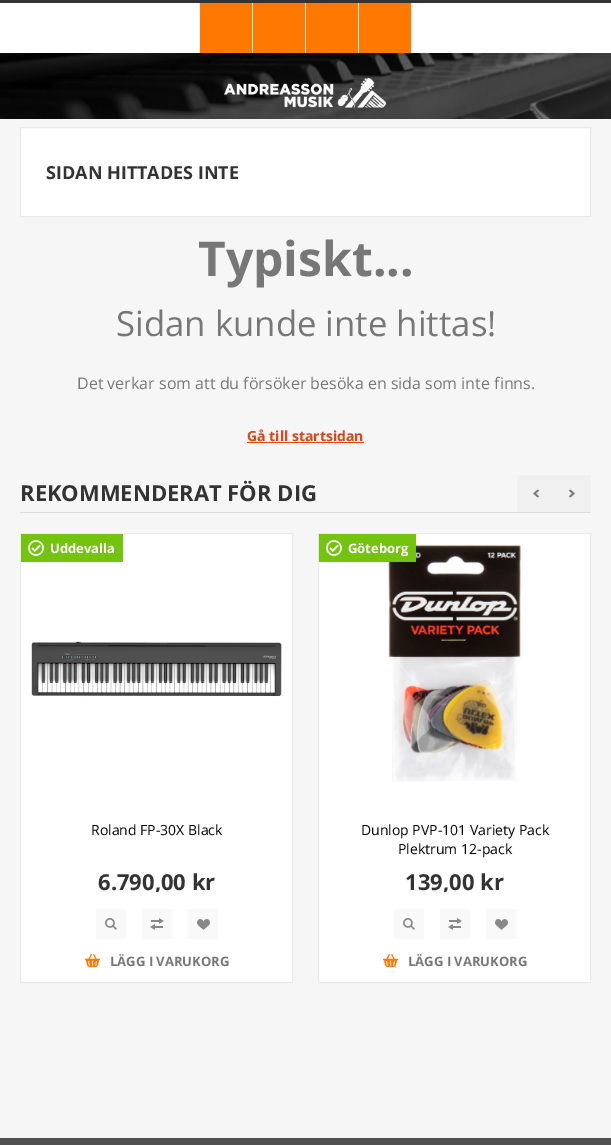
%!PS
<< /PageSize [611 1145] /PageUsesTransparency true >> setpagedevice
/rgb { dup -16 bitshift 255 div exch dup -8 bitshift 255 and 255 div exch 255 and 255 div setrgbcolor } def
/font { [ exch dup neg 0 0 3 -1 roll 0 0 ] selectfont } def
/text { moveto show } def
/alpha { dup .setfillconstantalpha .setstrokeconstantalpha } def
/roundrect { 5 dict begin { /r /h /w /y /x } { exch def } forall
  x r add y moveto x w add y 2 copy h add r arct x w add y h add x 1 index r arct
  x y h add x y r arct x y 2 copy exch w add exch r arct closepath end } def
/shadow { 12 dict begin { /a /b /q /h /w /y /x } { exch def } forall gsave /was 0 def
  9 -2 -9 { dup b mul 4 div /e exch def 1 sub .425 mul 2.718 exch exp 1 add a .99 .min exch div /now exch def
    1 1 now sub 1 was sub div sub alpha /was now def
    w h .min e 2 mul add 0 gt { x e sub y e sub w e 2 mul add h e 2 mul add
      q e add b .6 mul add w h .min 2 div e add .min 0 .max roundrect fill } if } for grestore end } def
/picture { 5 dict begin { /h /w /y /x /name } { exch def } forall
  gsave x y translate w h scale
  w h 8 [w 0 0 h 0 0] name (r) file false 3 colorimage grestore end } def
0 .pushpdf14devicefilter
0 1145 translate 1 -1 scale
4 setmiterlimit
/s1 { /OpenSans-Bold 18 font 16#333333 rgb } def
/s2 { /OpenSans-Bold 48 font 16#777777 rgb } def
/s3 { /OpenSans-Regular 34.75 font 16#777777 rgb } def
/s4 { /OpenSans-Regular 16 font 16#777777 rgb } def
/s5 { /OpenSans-Bold 14 font 16#E24515 rgb } def
/s6 { /OpenSans-Bold 22 font 16#333333 rgb } def
/s7 { /OpenSans-Bold 13 font 16#FFFFFF rgb } def
/s8 { /OpenSans-Regular 14 font 16#000000 rgb } def
/s9 { /OpenSans-Bold 13 font 16#777777 rgb } def
16#F6F6F6 rgb
0 0 611 1145 rectfill
(pic1.raw) 0 53 611 66 picture
16#000000 rgb
0 3 611 53 0 2.5 0.1 shadow
16#FFFFFF rgb
0 3 611 50 rectfill
16#333333 rgb
0 0 611 3 rectfill
16#FF7800 rgb
200 3 52 50 rectfill
16#EEEEEE rgb
252 3 1 50 rectfill
199 3 1 50 rectfill
16#FF7800 rgb
253 3 52 50 rectfill
16#EEEEEE rgb
305 3 1 50 rectfill
16#FF7800 rgb
306 3 52 50 rectfill
16#EEEEEE rgb
358 3 1 50 rectfill
16#FF7800 rgb
359 3 52 50 rectfill
16#EEEEEE rgb
411 3 1 50 rectfill
(pic2.raw) 224 77 163 31 picture
16#FFFFFF rgb
20.5 127.5 moveto 590.5 127.5 lineto 590.5 216.5 lineto 20.5 216.5 lineto closepath gsave fill grestore
16#E9E9E9 rgb
stroke
s1
(SIDAN HITTADES INTE) 46 179 text
s2
(Typiskt...) 198 276 text
s3
(Sidan kunde inte hittas!) 116 336 text
s4
(Det verkar som att du försöker besöka en sida som inte finns.) 77 389 text
s5
(Gå till startsidan) 247 441 text
247 442 117 1 rectfill
16#DDDDDD rgb
20 512 571 1 rectfill
s6
(REKOMMENDERAT FÖR DIG) 20 501 text
16#F0F0F0 rgb
517 475 74 37 rectfill
(pic3.raw) 533 489 6 9 picture
(pic4.raw) 569 489 6 9 picture
16#FFFFFF rgb
20.5 533.5 moveto 292.5 533.5 lineto 292.5 982.5 lineto 20.5 982.5 lineto closepath gsave fill grestore
16#E9E9E9 rgb
stroke
16#74C30E rgb
21 534 102 28 rectfill
(pic5.raw) 28 540 16 16 picture
s7
(Uddevalla) 50 553 text
(pic6.raw) 31 641 251 56 picture
s8
(Roland FP-30X Black) 91 835 text
gsave
21 870 271 22 rectclip
s6
(6.790,00 kr) 98 890 text
grestore
16#888888 rgb
105 918 12 12 rectfill
(pic7.raw) 96 909 30 30 picture
150 918 14 12 rectfill
(pic8.raw) 142 909 30 30 picture
197 919 13 11 rectfill
(pic9.raw) 188 909 30 30 picture
16#FF7800 rgb
85 954 15 13 rectfill
(pic10.raw) 85 952 15 18 picture
s9
(LÄGG I VARUKORG) 110 966 text
16#FFFFFF rgb
318.5 533.5 moveto 590.5 533.5 lineto 590.5 982.5 lineto 318.5 982.5 lineto closepath gsave fill grestore
16#E9E9E9 rgb
stroke
(pic11.raw) 388 544 133 238 picture
16#74C30E rgb
319 534 97 28 rectfill
(pic5.raw) 326 540 16 16 picture
s7
(Göteborg) 348 553 text
s8
(Dunlop PVP-101 Variety Pack) 361 835 text
(Plektrum 12-pack) 398 854 text
gsave
319 870 271 22 rectclip
s6
(139,00 kr) 405 890 text
grestore
16#888888 rgb
403 918 12 12 rectfill
(pic7.raw) 394 909 30 30 picture
448 918 14 12 rectfill
(pic8.raw) 440 909 30 30 picture
495 919 13 11 rectfill
(pic9.raw) 486 909 30 30 picture
16#FF7800 rgb
383 954 15 13 rectfill
(pic10.raw) 383 952 15 18 picture
s9
(LÄGG I VARUKORG) 408 966 text
16#515151 rgb
0 1138 611 7 rectfill
.poppdf14devicefilter showpage
